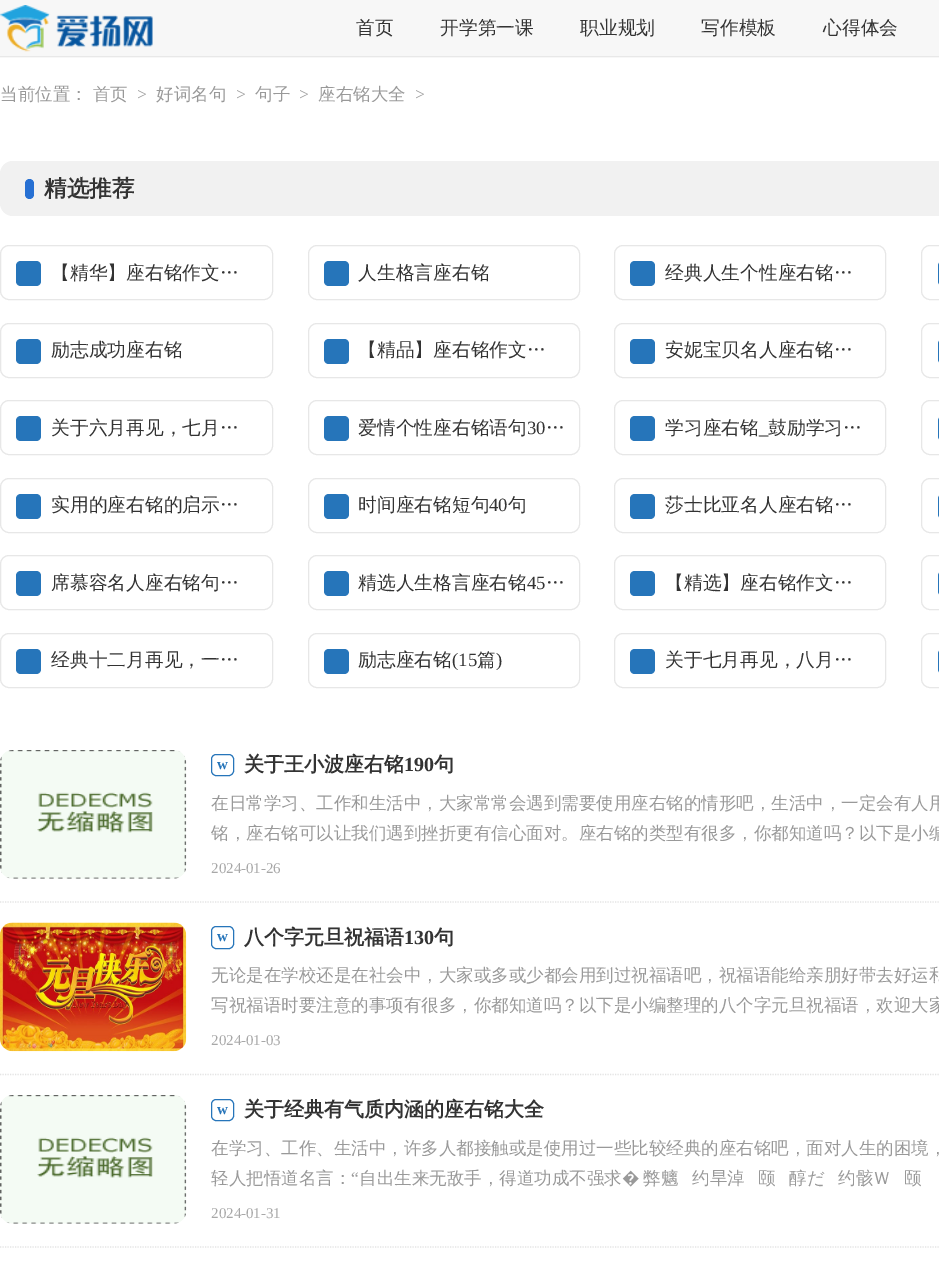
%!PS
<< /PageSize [939 1266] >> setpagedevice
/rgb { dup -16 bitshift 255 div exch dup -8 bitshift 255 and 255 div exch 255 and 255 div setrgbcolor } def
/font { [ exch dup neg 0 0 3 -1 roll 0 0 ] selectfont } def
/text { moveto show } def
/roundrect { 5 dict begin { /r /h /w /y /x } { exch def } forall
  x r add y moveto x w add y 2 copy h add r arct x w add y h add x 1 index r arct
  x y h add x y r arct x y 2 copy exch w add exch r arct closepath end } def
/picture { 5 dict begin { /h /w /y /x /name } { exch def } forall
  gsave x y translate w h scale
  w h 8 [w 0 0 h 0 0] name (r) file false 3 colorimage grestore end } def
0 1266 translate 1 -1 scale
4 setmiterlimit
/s1 { /WenQuanYiZenHei-Medium 18.75 font 16#333333 rgb } def
/s2 { /WenQuanYiZenHei-Medium 17.5 font 16#999999 rgb } def
/s3 { /LiberationSerif-Regular 17.5 font 16#999999 rgb } def
/s4 { /WenQuanYiZenHei-Bold 22.5 font 16#333333 rgb } def
/s5 { /LiberationSerif-Regular 18.75 font 16#333333 rgb } def
/s6 { /LiberationSerif-Bold 15 font 16#2675BA rgb } def
/s7 { /WenQuanYiZenHei-Bold 20 font 16#333333 rgb } def
/s8 { /LiberationSerif-Bold 20 font 16#333333 rgb } def
/s9 { /LiberationSerif-Regular 15 font 16#A8A8A8 rgb } def
/s10 { /NotoSans-Regular 17.5 font 16#999999 rgb } def
16#FFFFFF rgb
0 0 939 1266 rectfill
16#F7F7F7 rgb
0 0 939 58 rectfill
16#E8E8E8 rgb
0 56 939 1 rectfill
(pic1.raw) 0 5 153 47 picture
s1
(首页) 356 34 text
(开学第一课) 440 34 text
(职业规划) 580 34 text
(写作模板) 701 34 text
(心得体会) 823 34 text
s2
(当前位置： 首页) 0 100 text
s3
(>) 137 100 text
s2
(好词名句) 156 100 text
s3
(>) 236 100 text
s2
(句子) 255 100 text
s3
(>) 299 100 text
s2
(座右铭大全) 318 100 text
s3
(>) 415 100 text
16#F1F1F1 rgb
0 161 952 55 13 roundrect fill
16#2770D3 rgb
25 179 9 20 4.5 roundrect fill
s4
(精选推荐) 44 196 text
16#E7E7E7 rgb
0.5 245.5 272 54 8.5 roundrect stroke
16#2675BA rgb
21 261 moveto 18 261 16 263 16 266 curveto 16 281 lineto 16 284 18 286 21 286 curveto 36 286 lineto 39 286 41 284 41 281 curveto 41 266 lineto 41 263 39 261 36 261 curveto closepath fill
s1
(【精华】座右铭作文…) 51 279 text
16#E7E7E7 rgb
308.5 245.5 271 54 8.5 roundrect stroke
16#2675BA rgb
329 261 moveto 326 261 324 263 324 266 curveto 324 281 lineto 324 284 326 286 329 286 curveto 344 286 lineto 347 286 349 284 349 281 curveto 349 266 lineto 349 263 347 261 344 261 curveto closepath fill
s1
(人生格言座右铭) 358 279 text
16#E7E7E7 rgb
614.5 245.5 271 54 8.5 roundrect stroke
16#2675BA rgb
635 261 moveto 632 261 630 263 630 266 curveto 630 281 lineto 630 284 632 286 635 286 curveto 650 286 lineto 653 286 655 284 655 281 curveto 655 266 lineto 655 263 653 261 650 261 curveto closepath fill
s1
(经典人生个性座右铭…) 665 279 text
16#E7E7E7 rgb
921.5 245.5 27 54 8.5 roundrect stroke
16#2675BA rgb
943 261 moveto 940 261 938 263 938 266 curveto 938 281 lineto 938 284 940 286 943 286 curveto 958 286 lineto 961 286 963 284 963 281 curveto 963 266 lineto 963 263 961 261 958 261 curveto closepath fill
16#E7E7E7 rgb
0.5 323.5 272 54 8.5 roundrect stroke
16#2675BA rgb
21 339 moveto 18 339 16 341 16 344 curveto 16 359 lineto 16 362 18 364 21 364 curveto 36 364 lineto 39 364 41 362 41 359 curveto 41 344 lineto 41 341 39 339 36 339 curveto closepath fill
s1
(励志成功座右铭) 51 356 text
16#E7E7E7 rgb
308.5 323.5 271 54 8.5 roundrect stroke
16#2675BA rgb
329 339 moveto 326 339 324 341 324 344 curveto 324 359 lineto 324 362 326 364 329 364 curveto 344 364 lineto 347 364 349 362 349 359 curveto 349 344 lineto 349 341 347 339 344 339 curveto closepath fill
s1
(【精品】座右铭作文…) 358 356 text
16#E7E7E7 rgb
614.5 323.5 271 54 8.5 roundrect stroke
16#2675BA rgb
635 339 moveto 632 339 630 341 630 344 curveto 630 359 lineto 630 362 632 364 635 364 curveto 650 364 lineto 653 364 655 362 655 359 curveto 655 344 lineto 655 341 653 339 650 339 curveto closepath fill
s1
(安妮宝贝名人座右铭…) 665 356 text
16#E7E7E7 rgb
921.5 323.5 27 54 8.5 roundrect stroke
16#2675BA rgb
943 339 moveto 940 339 938 341 938 344 curveto 938 359 lineto 938 362 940 364 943 364 curveto 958 364 lineto 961 364 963 362 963 359 curveto 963 344 lineto 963 341 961 339 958 339 curveto closepath fill
16#E7E7E7 rgb
0.5 400.5 272 54 8.5 roundrect stroke
16#2675BA rgb
21 416 moveto 18 416 16 418 16 421 curveto 16 436 lineto 16 439 18 441 21 441 curveto 36 441 lineto 39 441 41 439 41 436 curveto 41 421 lineto 41 418 39 416 36 416 curveto closepath fill
s1
(关于六月再见，七月…) 51 434 text
16#E7E7E7 rgb
308.5 400.5 271 54 8.5 roundrect stroke
16#2675BA rgb
329 416 moveto 326 416 324 418 324 421 curveto 324 436 lineto 324 439 326 441 329 441 curveto 344 441 lineto 347 441 349 439 349 436 curveto 349 421 lineto 349 418 347 416 344 416 curveto closepath fill
s1
(爱情个性座右铭语句) 358 434 text
s5
(30) 527 434 text
s1
(…) 546 434 text
16#E7E7E7 rgb
614.5 400.5 271 54 8.5 roundrect stroke
16#2675BA rgb
635 416 moveto 632 416 630 418 630 421 curveto 630 436 lineto 630 439 632 441 635 441 curveto 650 441 lineto 653 441 655 439 655 436 curveto 655 421 lineto 655 418 653 416 650 416 curveto closepath fill
s1
(学习座右铭) 665 434 text
s5
(_) 759 434 text
s1
(鼓励学习…) 768 434 text
16#E7E7E7 rgb
921.5 400.5 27 54 8.5 roundrect stroke
16#2675BA rgb
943 416 moveto 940 416 938 418 938 421 curveto 938 436 lineto 938 439 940 441 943 441 curveto 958 441 lineto 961 441 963 439 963 436 curveto 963 421 lineto 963 418 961 416 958 416 curveto closepath fill
16#E7E7E7 rgb
0.5 478.5 272 54 8.5 roundrect stroke
16#2675BA rgb
21 494 moveto 18 494 16 496 16 499 curveto 16 514 lineto 16 517 18 519 21 519 curveto 36 519 lineto 39 519 41 517 41 514 curveto 41 499 lineto 41 496 39 494 36 494 curveto closepath fill
s1
(实用的座右铭的启示…) 51 511 text
16#E7E7E7 rgb
308.5 478.5 271 54 8.5 roundrect stroke
16#2675BA rgb
329 494 moveto 326 494 324 496 324 499 curveto 324 514 lineto 324 517 326 519 329 519 curveto 344 519 lineto 347 519 349 517 349 514 curveto 349 499 lineto 349 496 347 494 344 494 curveto closepath fill
s1
(时间座右铭短句) 358 511 text
s5
(40) 489 511 text
s1
(句) 508 511 text
16#E7E7E7 rgb
614.5 478.5 271 54 8.5 roundrect stroke
16#2675BA rgb
635 494 moveto 632 494 630 496 630 499 curveto 630 514 lineto 630 517 632 519 635 519 curveto 650 519 lineto 653 519 655 517 655 514 curveto 655 499 lineto 655 496 653 494 650 494 curveto closepath fill
s1
(莎士比亚名人座右铭…) 665 511 text
16#E7E7E7 rgb
921.5 478.5 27 54 8.5 roundrect stroke
16#2675BA rgb
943 494 moveto 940 494 938 496 938 499 curveto 938 514 lineto 938 517 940 519 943 519 curveto 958 519 lineto 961 519 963 517 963 514 curveto 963 499 lineto 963 496 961 494 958 494 curveto closepath fill
16#E7E7E7 rgb
0.5 555.5 272 54 8.5 roundrect stroke
16#2675BA rgb
21 571 moveto 18 571 16 573 16 576 curveto 16 591 lineto 16 594 18 596 21 596 curveto 36 596 lineto 39 596 41 594 41 591 curveto 41 576 lineto 41 573 39 571 36 571 curveto closepath fill
s1
(席慕容名人座右铭句…) 51 589 text
16#E7E7E7 rgb
308.5 555.5 271 54 8.5 roundrect stroke
16#2675BA rgb
329 571 moveto 326 571 324 573 324 576 curveto 324 591 lineto 324 594 326 596 329 596 curveto 344 596 lineto 347 596 349 594 349 591 curveto 349 576 lineto 349 573 347 571 344 571 curveto closepath fill
s1
(精选人生格言座右铭) 358 589 text
s5
(45) 527 589 text
s1
(…) 546 589 text
16#E7E7E7 rgb
614.5 555.5 271 54 8.5 roundrect stroke
16#2675BA rgb
635 571 moveto 632 571 630 573 630 576 curveto 630 591 lineto 630 594 632 596 635 596 curveto 650 596 lineto 653 596 655 594 655 591 curveto 655 576 lineto 655 573 653 571 650 571 curveto closepath fill
s1
(【精选】座右铭作文…) 665 589 text
16#E7E7E7 rgb
921.5 555.5 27 54 8.5 roundrect stroke
16#2675BA rgb
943 571 moveto 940 571 938 573 938 576 curveto 938 591 lineto 938 594 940 596 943 596 curveto 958 596 lineto 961 596 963 594 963 591 curveto 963 576 lineto 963 573 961 571 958 571 curveto closepath fill
16#E7E7E7 rgb
0.5 633.5 272 54 8.5 roundrect stroke
16#2675BA rgb
21 649 moveto 18 649 16 651 16 654 curveto 16 669 lineto 16 672 18 674 21 674 curveto 36 674 lineto 39 674 41 672 41 669 curveto 41 654 lineto 41 651 39 649 36 649 curveto closepath fill
s1
(经典十二月再见，一…) 51 666 text
16#E7E7E7 rgb
308.5 633.5 271 54 8.5 roundrect stroke
16#2675BA rgb
329 649 moveto 326 649 324 651 324 654 curveto 324 669 lineto 324 672 326 674 329 674 curveto 344 674 lineto 347 674 349 672 349 669 curveto 349 654 lineto 349 651 347 649 344 649 curveto closepath fill
s1
(励志座右铭) 358 666 text
s5
(\(15) 452 666 text
s1
(篇) 477 666 text
s5
(\)) 496 666 text
16#E7E7E7 rgb
614.5 633.5 271 54 8.5 roundrect stroke
16#2675BA rgb
635 649 moveto 632 649 630 651 630 654 curveto 630 669 lineto 630 672 632 674 635 674 curveto 650 674 lineto 653 674 655 672 655 669 curveto 655 654 lineto 655 651 653 649 650 649 curveto closepath fill
s1
(关于七月再见，八月…) 665 666 text
16#E7E7E7 rgb
921.5 633.5 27 54 8.5 roundrect stroke
16#2675BA rgb
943 649 moveto 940 649 938 651 938 654 curveto 938 669 lineto 938 672 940 674 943 674 curveto 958 674 lineto 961 674 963 672 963 669 curveto 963 654 lineto 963 651 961 649 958 649 curveto closepath fill
16#E4E4E4 rgb
1.2 setlinewidth
[1.25 1.25] 0 setdash
0 902 moveto 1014 902 lineto stroke
(pic2.raw) 0 750 187 129 picture
16#2675BA rgb
1 setlinewidth
[] 0 setdash
211.5 754.5 22 21 4.5 roundrect stroke
s6
(w) 217 769 text
s7
(关于王小波座右铭) 244 771 text
s8
(190) 404 771 text
s7
(句) 434 771 text
s2
(在日常学习、工作和生活中，大家常常会遇到需要使用座右铭的情形吧，生活中，一定会有人用) 211 809 text
(铭，座右铭可以让我们遇到挫折更有信心面对。座右铭的类型有很多，你都知道吗？以下是小编) 211 839 text
s9
(2024-01-26) 211 873 text
16#E4E4E4 rgb
1.2 setlinewidth
[1.25 1.25] 0 setdash
0 1074.5 moveto 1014 1074.5 lineto stroke
(pic3.raw) 0 922 187 130 picture
16#2675BA rgb
1 setlinewidth
[] 0 setdash
211.5 926.5 22 22 4.5 roundrect stroke
s6
(w) 217 941 text
s7
(八个字元旦祝福语) 244 944 text
s8
(130) 404 944 text
s7
(句) 434 944 text
s2
(无论是在学校还是在社会中，大家或多或少都会用到过祝福语吧，祝福语能给亲朋好带去好运和) 211 981 text
(写祝福语时要注意的事项有很多，你都知道吗？以下是小编整理的八个字元旦祝福语，欢迎大家) 211 1011 text
s9
(2024-01-03) 211 1045 text
16#E4E4E4 rgb
1.2 setlinewidth
[1.25 1.25] 0 setdash
0 1247 moveto 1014 1247 lineto stroke
(pic2.raw) 0 1095 187 129 picture
16#2675BA rgb
1 setlinewidth
[] 0 setdash
211.5 1099.5 22 21 4.5 roundrect stroke
s6
(w) 217 1114 text
s7
(关于经典有气质内涵的座右铭大全) 244 1116 text
s2
(在学习、工作、生活中，许多人都接触或是使用过一些比较经典的座右铭吧，面对人生的困境，) 211 1154 text
(轻人把悟道名言：) 211 1184 text
s3
(“) 351 1184 text
s2
(自出生来无敌手，得道功成不强求) 359 1184 text
s10
(�) 622 1184 text
s2
(弊魑) 643 1184 text
(约旱淖) 692 1184 text
(颐) 758 1184 text
(醇だ) 789 1184 text
(约骸Ｗ) 838 1184 text
(颐) 904 1184 text
s9
(2024-01-31) 211 1218 text
showpage
